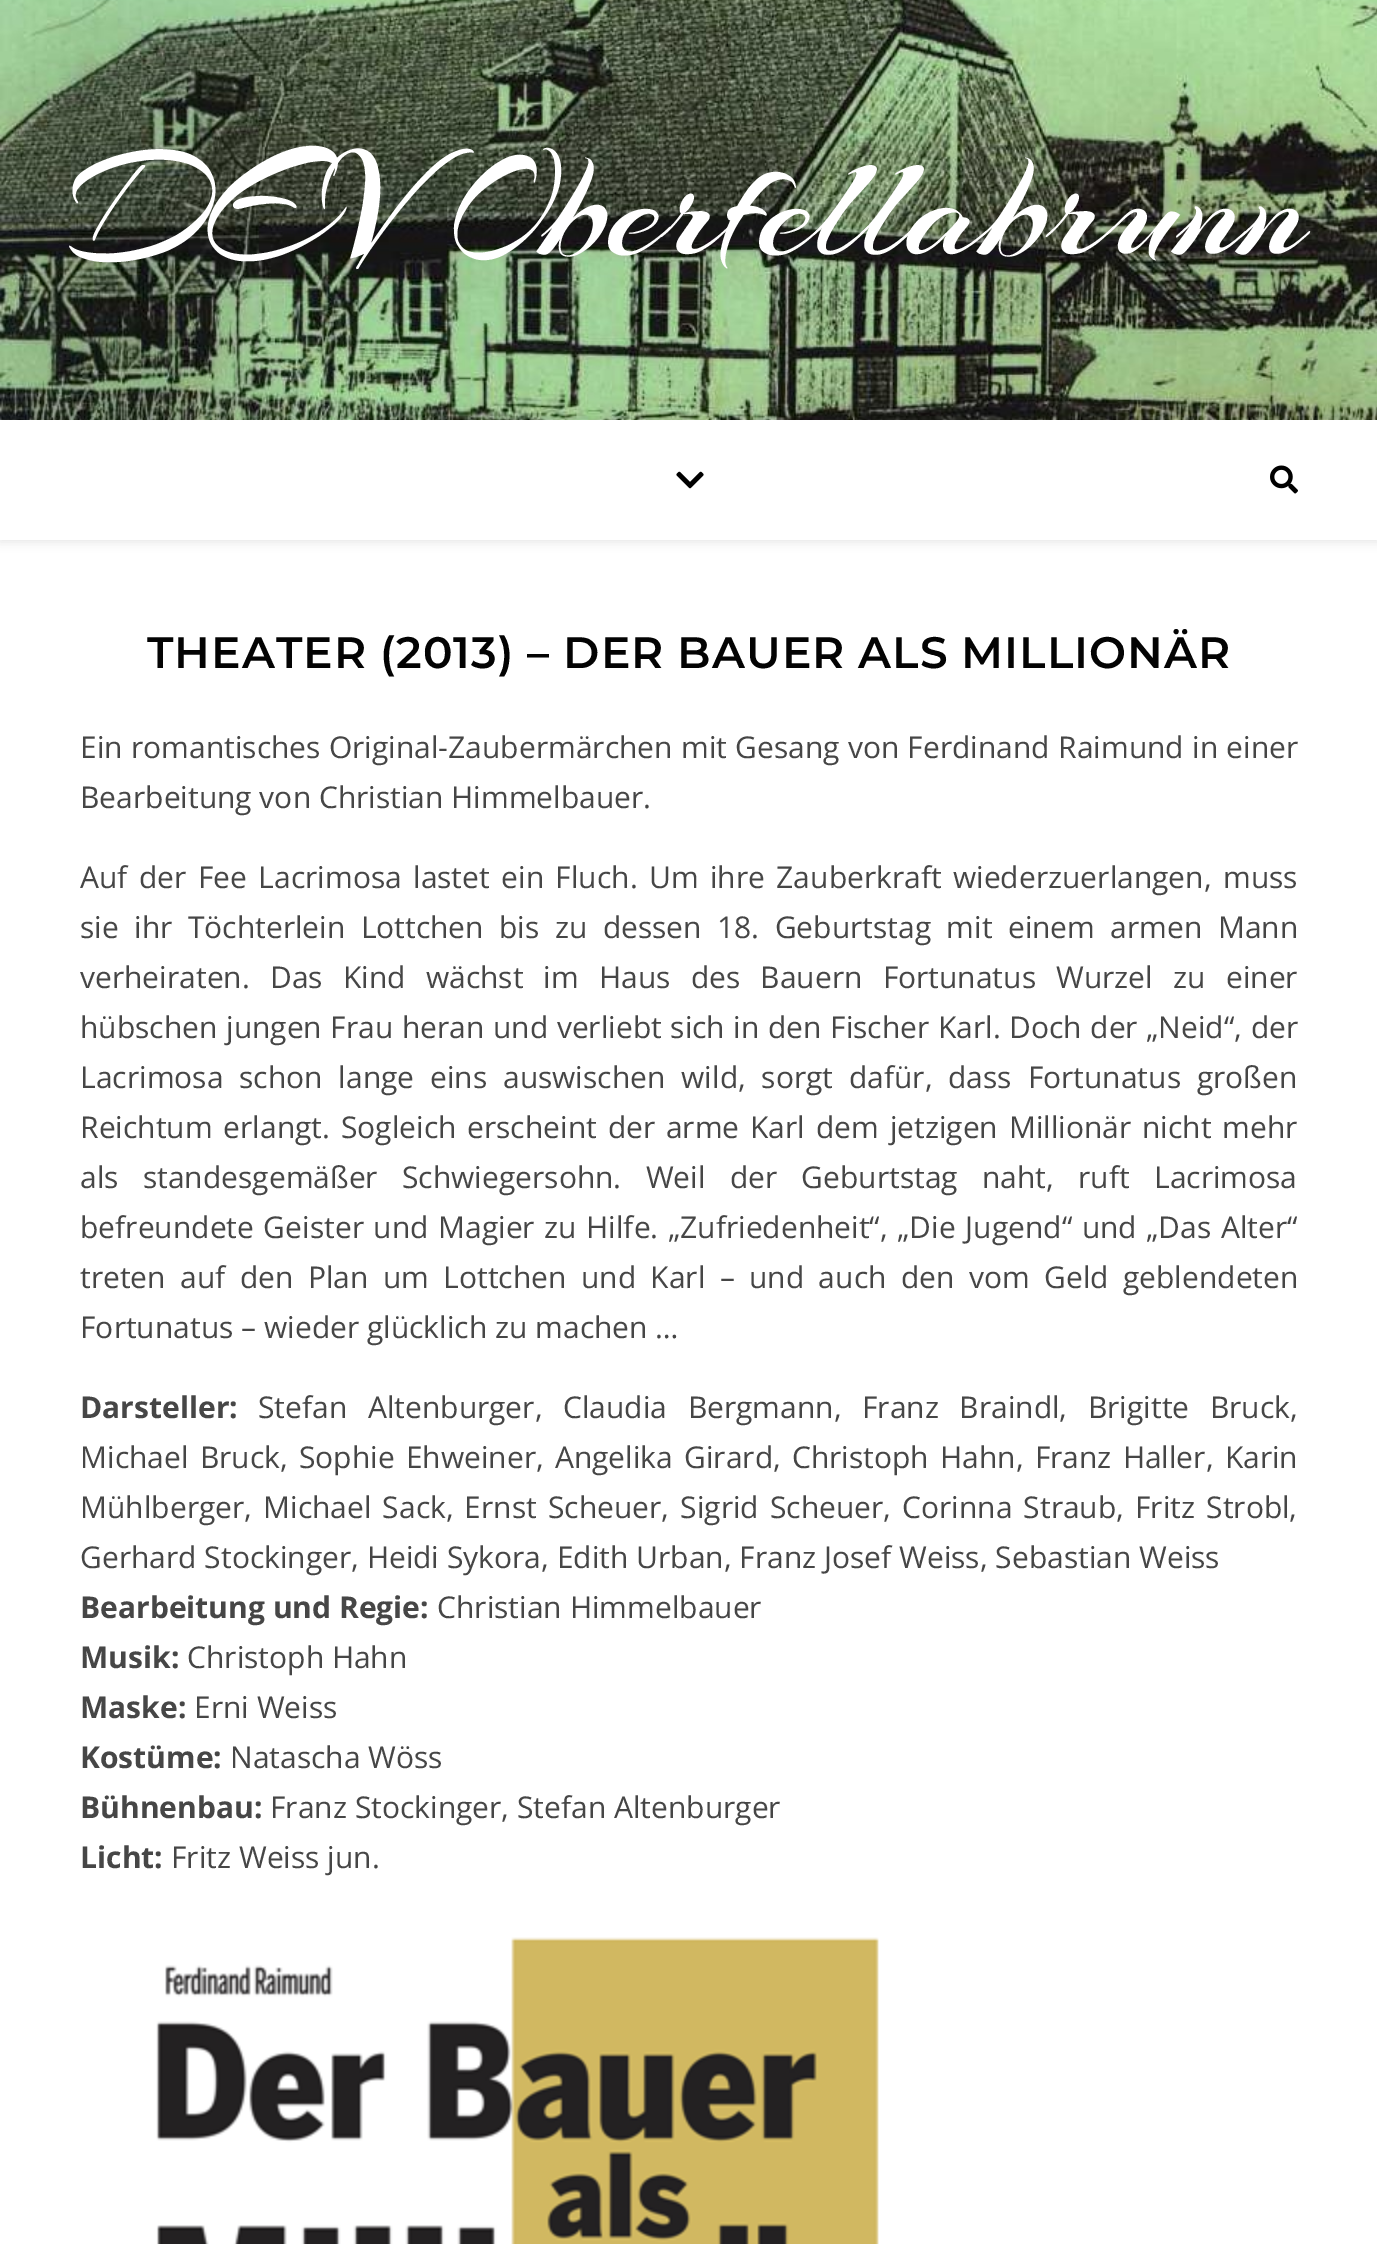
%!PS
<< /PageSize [1377 2244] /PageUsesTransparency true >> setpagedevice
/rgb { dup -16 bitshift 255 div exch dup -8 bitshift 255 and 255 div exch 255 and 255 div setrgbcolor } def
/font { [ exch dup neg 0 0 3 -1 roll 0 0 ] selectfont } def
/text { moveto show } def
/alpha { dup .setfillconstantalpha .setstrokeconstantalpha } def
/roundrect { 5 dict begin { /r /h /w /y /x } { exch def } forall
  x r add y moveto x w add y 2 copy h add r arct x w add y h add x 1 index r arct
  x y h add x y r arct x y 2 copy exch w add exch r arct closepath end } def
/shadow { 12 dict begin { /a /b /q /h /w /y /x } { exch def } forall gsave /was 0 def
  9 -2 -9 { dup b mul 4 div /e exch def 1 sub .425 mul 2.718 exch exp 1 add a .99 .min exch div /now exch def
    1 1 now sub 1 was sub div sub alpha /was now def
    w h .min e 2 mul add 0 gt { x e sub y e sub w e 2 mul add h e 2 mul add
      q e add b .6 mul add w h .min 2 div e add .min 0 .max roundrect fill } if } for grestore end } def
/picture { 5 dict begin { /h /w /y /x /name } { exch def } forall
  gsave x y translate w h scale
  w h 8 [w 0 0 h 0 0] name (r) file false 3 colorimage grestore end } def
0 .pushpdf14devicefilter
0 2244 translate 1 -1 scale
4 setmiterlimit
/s1 { /Arizonia-Regular 160 font 16#FFFFFF rgb } def
/s2 { /OpenSans-Regular 30 font 16#464646 rgb } def
/s3 { /OpenSans-Bold 30 font 16#464646 rgb } def
16#FFFFFF rgb
0 0 1377 2244 rectfill
(pic1.raw) 0 0 1377 420 picture
s1
(DEV Oberfellabrunn) 70 254 text
16#000000 rgb
0 422 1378 120 0 5 0.1 shadow
16#FFFFFF rgb
0 420 1377 120 rectfill
(pic2.raw) 676 471 28 18 picture
(pic3.raw) 1270 465 28 29 picture
/Montserrat-SemiBold 44 font
16#030303 rgb
147 668 moveto 1 0 (THEATER \(2013\) – DER BAUER ALS MILLIONÄR) ashow
/OpenSans-Regular 30 font
16#464646 rgb
80 758 moveto 0.5 0 32 (Ein romantisches Original-Zaubermärchen mit Gesang von Ferdinand Raimund in einer) widthshow
(Bearbeitung von Christian Himmelbauer.) 80 808 text
80 888 moveto 3.6 0 32 (Auf der Fee Lacrimosa lastet ein Fluch. Um ihre Zauberkraft wiederzuerlangen, muss) widthshow
80 938 moveto 7.6 0 32 (sie ihr Töchterlein Lottchen bis zu dessen 18. Geburtstag mit einem armen Mann) widthshow
80 988 moveto 12.4 0 32 (verheiraten. Das Kind wächst im Haus des Bauern Fortunatus Wurzel zu einer) widthshow
80 1038 moveto 0.75 0 32 (hübschen jungen Frau heran und verliebt sich in den Fischer Karl. Doch der „Neid“, der) widthshow
80 1088 moveto 8 0 32 (Lacrimosa schon lange eins auswischen wild, sorgt dafür, dass Fortunatus großen) widthshow
80 1138 moveto 3 0 32 (Reichtum erlangt. Sogleich erscheint der arme Karl dem jetzigen Millionär nicht mehr) widthshow
80 1188 moveto 16.5 0 32 (als standesgemäßer Schwiegersohn. Weil der Geburtstag naht, ruft Lacrimosa) widthshow
80 1238 moveto 1.75 0 32 (befreundete Geister und Magier zu Hilfe. „Zufriedenheit“, „Die Jugend“ und „Das Alter“) widthshow
80 1288 moveto 6.6 0 32 (treten auf den Plan um Lottchen und Karl – und auch den vom Geld geblendeten) widthshow
(Fortunatus – wieder glücklich zu machen …) 80 1338 text
s3
(Darsteller:) 80 1418 text
/OpenSans-Regular 30 font
258 1418 moveto 12.75 0 32 (Stefan Altenburger, Claudia Bergmann, Franz Braindl, Brigitte Bruck,) widthshow
80 1468 moveto 3.4 0 32 (Michael Bruck, Sophie Ehweiner, Angelika Girard, Christoph Hahn, Franz Haller, Karin) widthshow
80 1518 moveto 3.25 0 32 (Mühlberger, Michael Sack, Ernst Scheuer, Sigrid Scheuer, Corinna Straub, Fritz Strobl,) widthshow
(Gerhard Stockinger, Heidi Sykora, Edith Urban, Franz Josef Weiss, Sebastian Weiss) 80 1568 text
s3
(Bearbeitung und Regie:) 80 1618 text
s2
(Christian Himmelbauer) 437 1618 text
s3
(Musik:) 80 1668 text
s2
(Christoph Hahn) 187 1668 text
s3
(Maske:) 80 1718 text
s2
(Erni Weiss) 194 1718 text
s3
(Kostüme:) 80 1768 text
s2
(Natascha Wöss) 230 1768 text
s3
(Bühnenbau:) 80 1818 text
s2
(Franz Stockinger, Stefan Altenburger) 270 1818 text
s3
(Licht:) 80 1868 text
s2
(Fritz Weiss jun.) 171 1868 text
(pic4.raw) 156 1937 723 307 picture
.poppdf14devicefilter showpage
